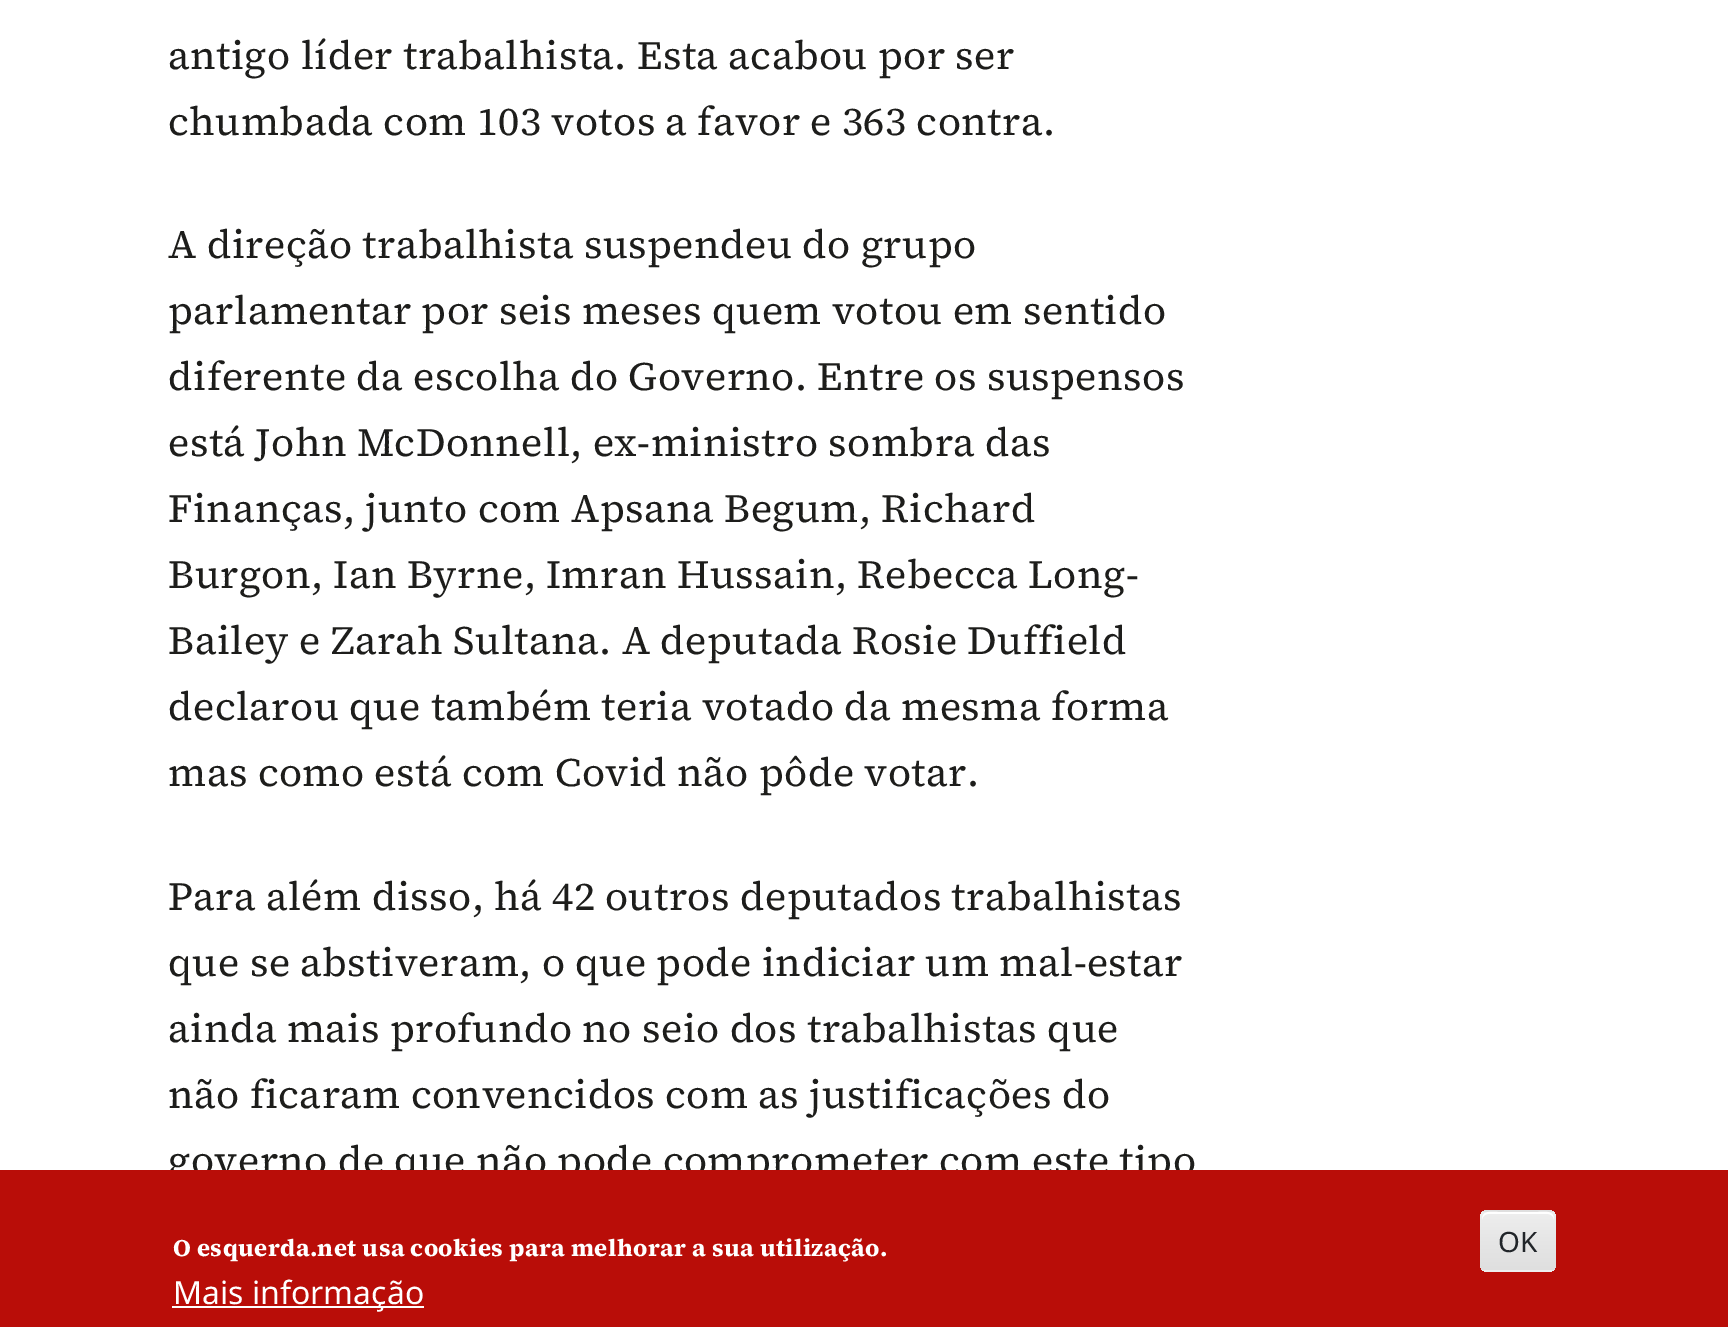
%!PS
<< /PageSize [1728 1327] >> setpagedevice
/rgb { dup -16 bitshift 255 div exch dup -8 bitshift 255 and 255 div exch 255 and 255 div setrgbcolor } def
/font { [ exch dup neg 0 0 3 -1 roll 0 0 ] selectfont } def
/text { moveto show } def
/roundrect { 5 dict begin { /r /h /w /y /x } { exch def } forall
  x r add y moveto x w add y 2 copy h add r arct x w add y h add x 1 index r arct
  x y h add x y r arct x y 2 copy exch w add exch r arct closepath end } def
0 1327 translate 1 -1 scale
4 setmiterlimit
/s1 { /NotoSans-Regular 32 font 16#FFFFFF rgb } def
/s2 { /NotoSans-Regular 28 font 16#212529 rgb } def
16#FFFFFF rgb
0 0 1728 1327 rectfill
/SourceSerif4-Regular 40 font
16#1D1D1B rgb
168 69 moveto 0.4 0 (antigo líder trabalhista. Esta acabou por ser) ashow
168 135 moveto 0.4 0 (chumbada com 103 votos a favor e 363 contra.) ashow
168 258 moveto 0.4 0 (A direção trabalhista suspendeu do grupo) ashow
168 324 moveto 0.4 0 (parlamentar por seis meses quem votou em sentido) ashow
168 390 moveto 0.4 0 (diferente da escolha do Governo. Entre os suspensos) ashow
168 456 moveto 0.4 0 (está John McDonnell, ex-ministro sombra das) ashow
168 522 moveto 0.4 0 (Finanças, junto com Apsana Begum, Richard) ashow
168 588 moveto 0.4 0 (Burgon, Ian Byrne, Imran Hussain, Rebecca Long-) ashow
168 654 moveto 0.4 0 (Bailey e Zarah Sultana. A deputada Rosie Duffield) ashow
168 720 moveto 0.4 0 (declarou que também teria votado da mesma forma) ashow
168 786 moveto 0.4 0 (mas como está com Covid não pôde votar.) ashow
168 910 moveto 0.4 0 (Para além disso, há 42 outros deputados trabalhistas) ashow
168 976 moveto 0.4 0 (que se abstiveram, o que pode indiciar um mal-estar) ashow
168 1042 moveto 0.4 0 (ainda mais profundo no seio dos trabalhistas que) ashow
168 1108 moveto 0.4 0 (não ficaram convencidos com as justificações do) ashow
168 1174 moveto 0.4 0 (governo de que não pode comprometer com este tipo) ashow
16#B90D08 rgb
0 1170 1728 157 rectfill
/SourceSerif4-Bold 24 font
16#FFFFFF rgb
173 1256 moveto 0.4 0 (O esquerda.net usa cookies para melhorar a sua utilização.) ashow
172 1306 252 2 rectfill
s1
(Mais informação) 173 1304 text
gsave
1480 1210 76 62 8 roundrect clip newpath
gsave 1480 1210 moveto 1556 1210 lineto 1556 1212 lineto 1480 1212 lineto closepath clip newpath
<< /ShadingType 2 /ColorSpace /DeviceRGB /Coords [1518 1154 1518 1212] /Extend [true true] /Function << /FunctionType 3 /Domain [0 1] /Functions [<< /FunctionType 2 /Domain [0 1] /C0 [0.929 0.929 0.929] /C1 [0.929 0.929 0.929] /N 1 >> << /FunctionType 2 /Domain [0 1] /C0 [0.929 0.929 0.929] /C1 [0.875 0.875 0.875] /N 1 >>] /Bounds [0.05] /Encode [0 1 0 1] >> >> shfill grestore
gsave 1480 1212 moveto 1556 1212 lineto 1556 1270 lineto 1480 1270 lineto closepath clip newpath
<< /ShadingType 2 /ColorSpace /DeviceRGB /Coords [1518 1212 1518 1270] /Extend [true true] /Function << /FunctionType 3 /Domain [0 1] /Functions [<< /FunctionType 2 /Domain [0 1] /C0 [0.929 0.929 0.929] /C1 [0.929 0.929 0.929] /N 1 >> << /FunctionType 2 /Domain [0 1] /C0 [0.929 0.929 0.929] /C1 [0.875 0.875 0.875] /N 1 >>] /Bounds [0.05] /Encode [0 1 0 1] >> >> shfill grestore
gsave 1480 1270 moveto 1556 1270 lineto 1556 1272 lineto 1480 1272 lineto closepath clip newpath
<< /ShadingType 2 /ColorSpace /DeviceRGB /Coords [1518 1270 1518 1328] /Extend [true true] /Function << /FunctionType 3 /Domain [0 1] /Functions [<< /FunctionType 2 /Domain [0 1] /C0 [0.929 0.929 0.929] /C1 [0.929 0.929 0.929] /N 1 >> << /FunctionType 2 /Domain [0 1] /C0 [0.929 0.929 0.929] /C1 [0.875 0.875 0.875] /N 1 >>] /Bounds [0.05] /Encode [0 1 0 1] >> >> shfill grestore
grestore
1488 1214 moveto 1548 1214 lineto 1551 1214 1554 1217 1554 1220 curveto 1554 1210 1546 1212 1538 1212 curveto 1498 1212 lineto 1490 1212 1482 1210 1482 1220 curveto 1482 1217 1485 1214 1488 1214 curveto closepath fill
s2
(OK) 1498 1252 text
showpage
